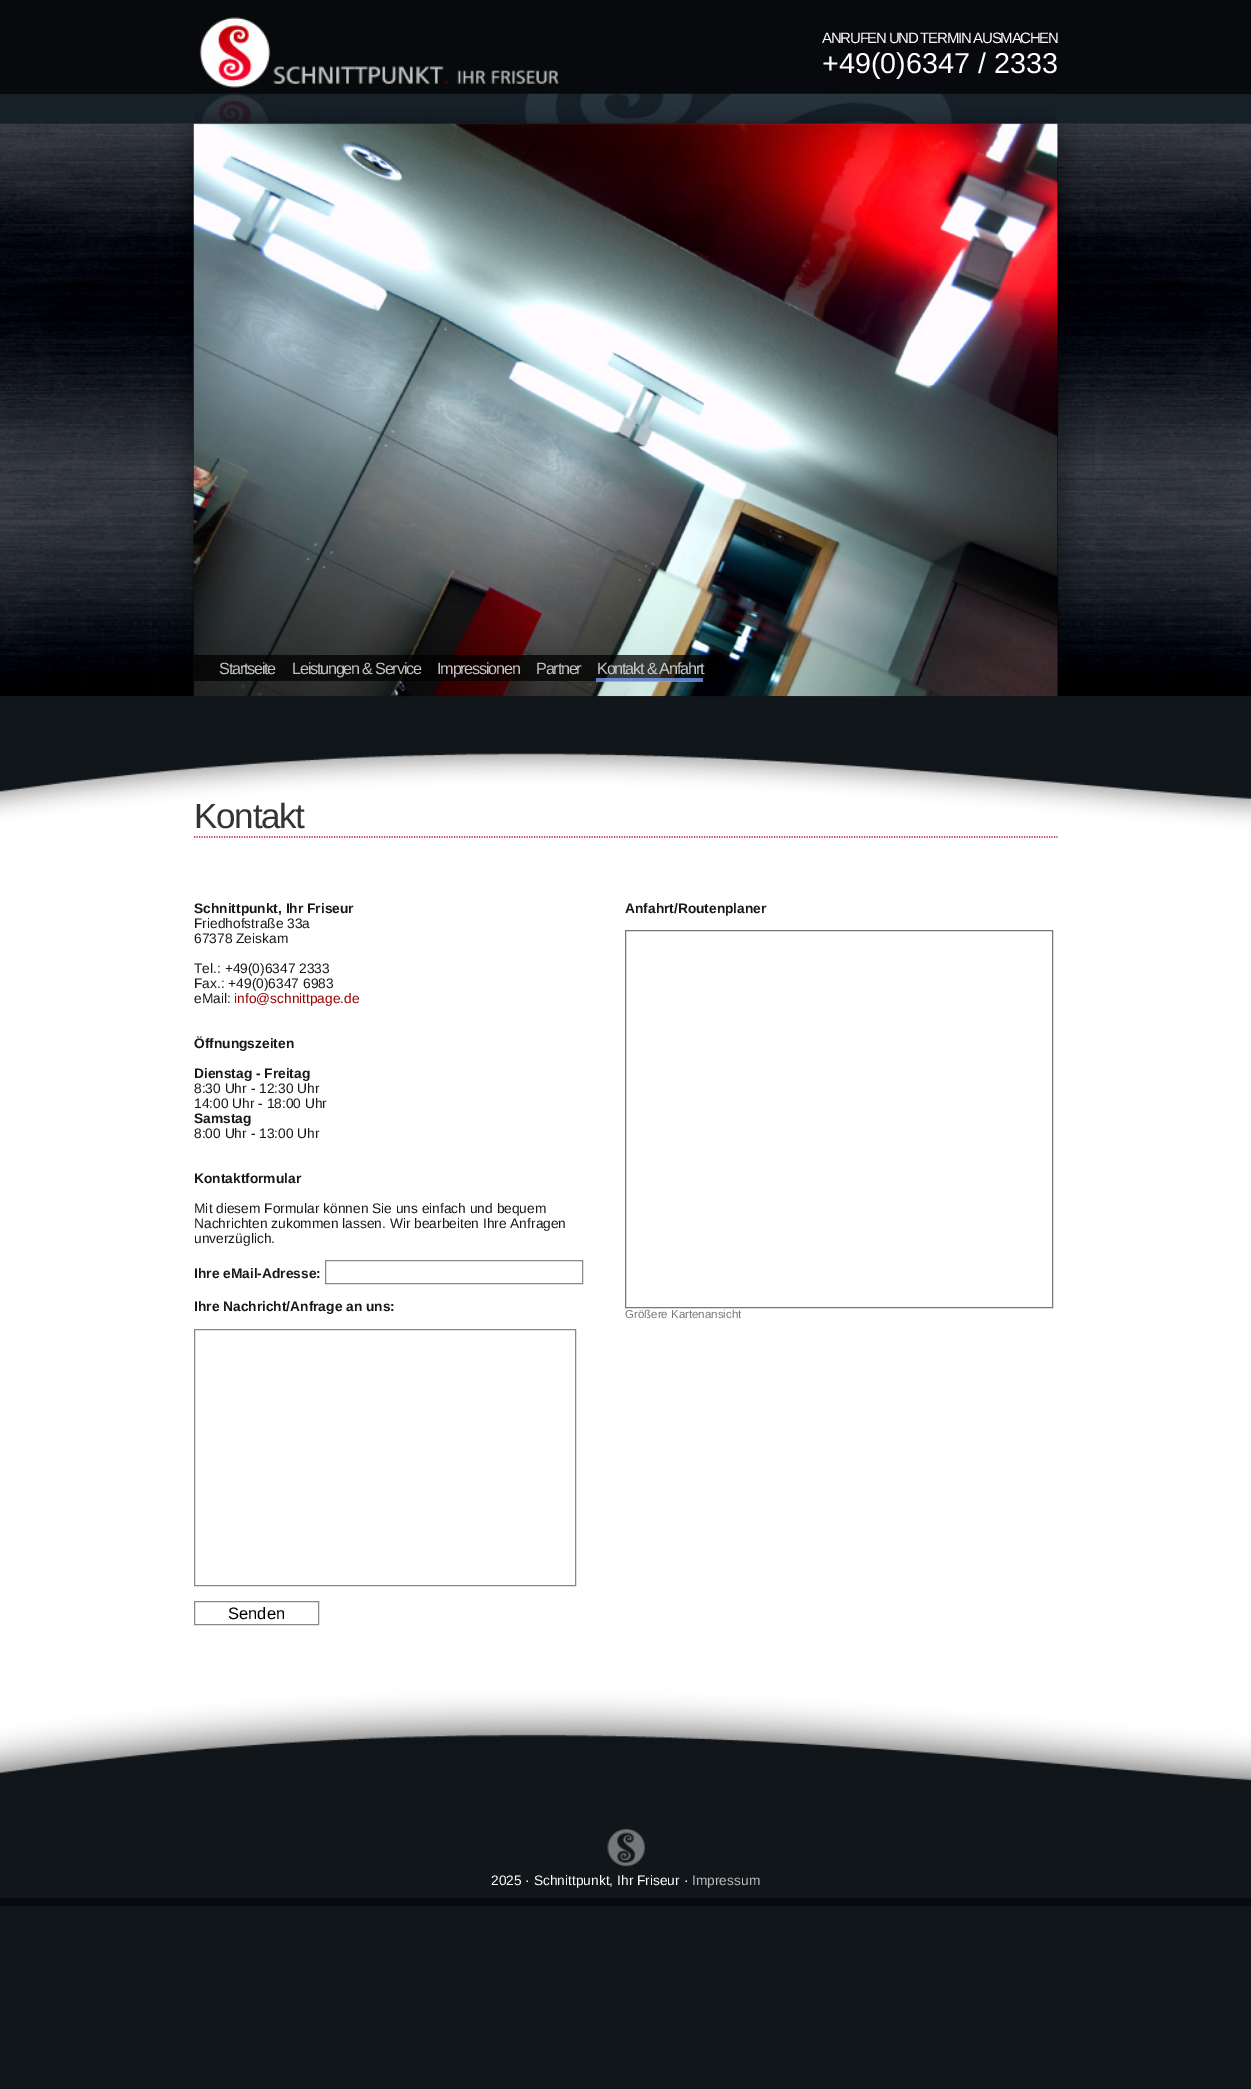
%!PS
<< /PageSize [1251 2089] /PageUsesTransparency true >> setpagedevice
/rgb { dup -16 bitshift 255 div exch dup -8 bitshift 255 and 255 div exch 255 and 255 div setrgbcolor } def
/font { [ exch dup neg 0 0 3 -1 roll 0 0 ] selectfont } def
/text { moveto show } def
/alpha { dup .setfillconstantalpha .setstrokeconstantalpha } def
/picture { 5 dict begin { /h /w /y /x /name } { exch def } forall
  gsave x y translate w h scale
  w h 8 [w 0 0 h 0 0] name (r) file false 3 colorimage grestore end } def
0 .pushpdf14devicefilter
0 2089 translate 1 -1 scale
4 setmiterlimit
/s1 { /LiberationSans-Regular 28.75 font 16#FFFFFF rgb } def
/s2 { /LiberationSans-Bold 13.75 font 16#191919 rgb } def
/s3 { /LiberationSans-Regular 13.75 font 16#191919 rgb } def
/s4 { /LiberationSans-Regular 13.75 font 16#990000 rgb } def
/s5 { /LiberationSans-Regular 16.5 font 16#000000 rgb } def
/s6 { /LiberationSans-Regular 11.5 font 16#777777 rgb } def
/s7 { /LiberationSans-Regular 13.75 font 16#FFFFFF rgb } def
/s8 { /LiberationSans-Regular 13.75 font 16#BBBBBB rgb } def
16#11161A rgb
0 0 1251 2089 rectfill
16#08090D rgb
0 0 1251 94 rectfill
(pic1.raw) 199 17 360 71 picture
/LiberationSans-Regular 15 font
16#FFFFFF rgb
822 43 moveto -1.25 0 (ANRUFEN UND TERMIN AUSMACHEN) ashow
s1
(+49\(0\)6347 / 2333) 822 73 text
16#162029 rgb
0 94 1251 30 rectfill
(pic2.raw) 194 93 863 31 picture
(pic3.raw) 0 123 1251 574 picture
(pic4.raw) 157 123 938 574 picture
16#000000 rgb
1057 124 1 538 rectfill
(pic5.raw) 193 123 865 574 picture
0.75 alpha
194 655 525 26 rectfill
/LiberationSans-Regular 16.25 font
1 alpha
16#C2C2C2 rgb
219 674 moveto -1.25 0 (Startseite) ashow
292 674 moveto -1.25 0 (Leistungen & Service) ashow
437 674 moveto -1.25 0 (Impressionen) ashow
536 674 moveto -1.25 0 (Partner) ashow
16#C8C9C8 rgb
597 674 moveto -1.25 0 (Kontakt & Anfahrt) ashow
0.75 alpha
16#7CA4FF rgb
596 678 107 4 rectfill
1 alpha
(pic6.raw) 0 696 1251 154 picture
16#AA0055 rgb
1.2 setlinewidth
[1.25 1.25] 0 setdash
194 837 moveto 1057.5 837 lineto stroke
/LiberationSans-Regular 35 font
16#333333 rgb
194 828 moveto -1.25 0 (Kontakt) ashow
16#FFFFFF rgb
0 850 1251 825 rectfill
s2
(Schnittpunkt, Ihr Friseur) 194 913 text
s3
(Friedhofstraße 33a) 194 928 text
(67378 Zeiskam) 194 943 text
(Tel.: +49\(0\)6347 2333) 194 973 text
(Fax.: +49\(0\)6347 6983) 194 988 text
(eMail:) 194 1003 text
s4
(info@schnittpage.de) 234 1003 text
s2
(Öffnungszeiten) 194 1048 text
(Dienstag - Freitag) 194 1078 text
s3
(8:30 Uhr - 12:30 Uhr) 194 1093 text
(14:00 Uhr - 18:00 Uhr) 194 1108 text
s2
(Samstag) 194 1123 text
s3
(8:00 Uhr - 13:00 Uhr) 194 1138 text
s2
(Kontaktformular) 194 1183 text
s3
(Mit diesem Formular können Sie uns einfach und bequem) 194 1213 text
(Nachrichten zukommen lassen. Wir bearbeiten Ihre Anfragen) 194 1228 text
(unverzüglich.) 194 1243 text
s2
(Ihre eMail-Adresse:) 194 1278 text
16#888888 rgb
1 setlinewidth
[] 0 setdash
325.5 1260.5 257 23 rectstroke
s2
(Ihre Nachricht/Anfrage an uns:) 194 1311 text
16#888888 rgb
194.5 1329.5 381 256 rectstroke
194.5 1601.5 124 23 rectstroke
s5
(Senden) 228 1619 text
s2
(Anfahrt/Routenplaner) 625 913 text
16#777777 rgb
625.5 930.5 427 377 rectstroke
s6
(Größere Kartenansicht) 625 1318 text
(pic8.raw) 607 1828 38 39 picture
(pic7.raw) 0 1675 1251 154 picture
16#08090D rgb
0 1898 1251 8 rectfill
s7
(2025 · Schnittpunkt, Ihr Friseur ·) 491 1885 text
s8
(Impressum) 692 1885 text
.poppdf14devicefilter showpage
